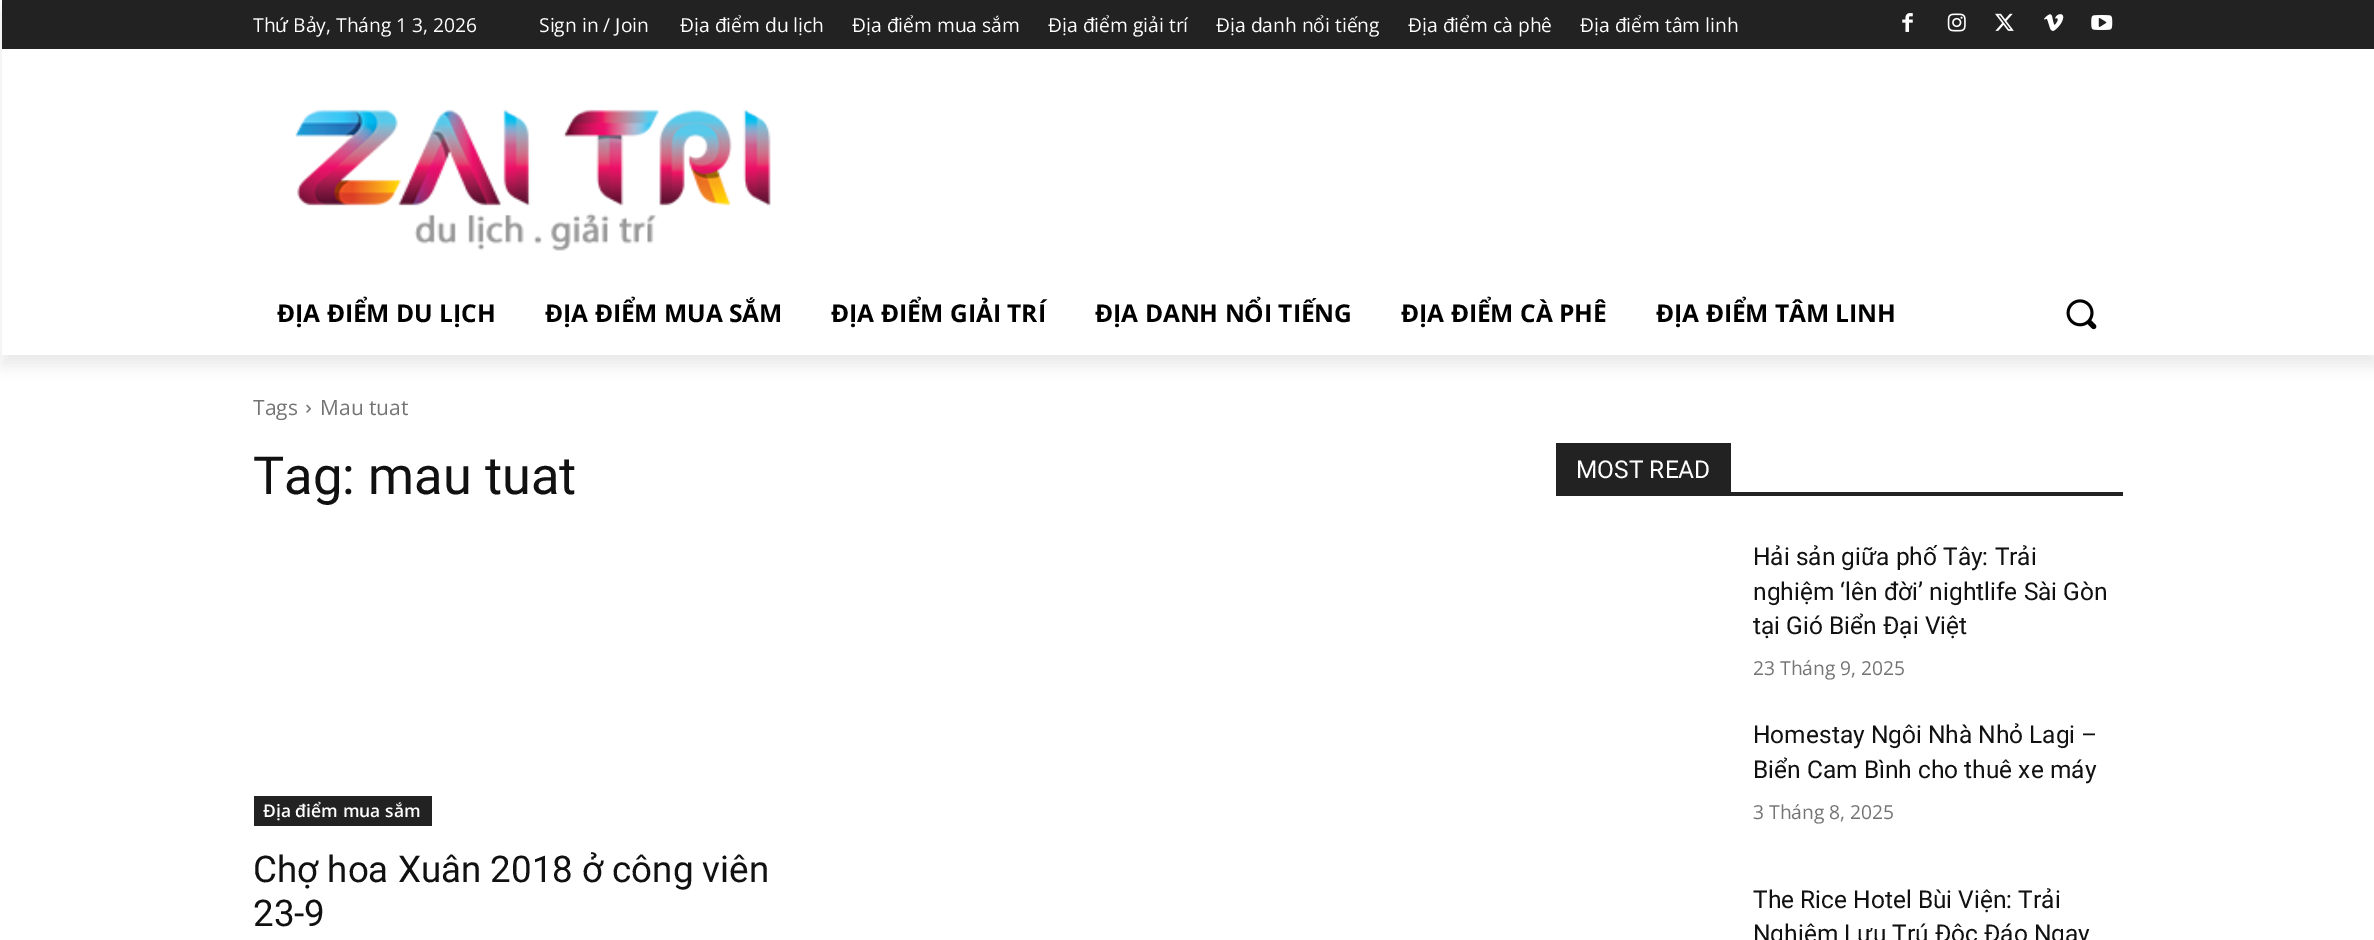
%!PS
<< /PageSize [2374 940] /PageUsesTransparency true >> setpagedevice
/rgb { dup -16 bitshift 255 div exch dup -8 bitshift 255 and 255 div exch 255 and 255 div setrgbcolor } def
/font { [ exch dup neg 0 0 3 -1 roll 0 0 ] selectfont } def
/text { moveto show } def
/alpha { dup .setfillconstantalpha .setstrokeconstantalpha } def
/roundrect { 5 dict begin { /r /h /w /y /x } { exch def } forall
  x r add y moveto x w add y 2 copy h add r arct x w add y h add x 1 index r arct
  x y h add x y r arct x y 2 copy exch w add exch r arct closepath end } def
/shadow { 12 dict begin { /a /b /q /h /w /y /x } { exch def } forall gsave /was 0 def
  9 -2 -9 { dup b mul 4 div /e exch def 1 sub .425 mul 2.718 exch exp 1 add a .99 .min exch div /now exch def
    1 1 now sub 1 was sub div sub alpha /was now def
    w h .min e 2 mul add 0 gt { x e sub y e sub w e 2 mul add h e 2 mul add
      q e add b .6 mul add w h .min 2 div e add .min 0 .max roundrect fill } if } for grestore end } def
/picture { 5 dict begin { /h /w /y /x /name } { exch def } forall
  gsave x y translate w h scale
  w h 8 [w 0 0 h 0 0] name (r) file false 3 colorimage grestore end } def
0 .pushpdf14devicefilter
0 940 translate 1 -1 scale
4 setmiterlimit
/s1 { /OpenSans-Regular 19.25 font 16#FFFFFF rgb } def
/s2 { /OpenSans-Bold 24.5 font 16#000000 rgb } def
/s3 { /OpenSans-Regular 21 font 16#747474 rgb } def
/s4 { /Roboto-Regular 52.5 font 16#111111 rgb } def
/s5 { /OpenSans-SemiBold 17.5 font 16#FFFFFF rgb } def
/s6 { /Roboto-Regular 36.75 font 16#111111 rgb } def
/s7 { /Roboto-Regular 24.5 font 16#FFFFFF rgb } def
/s8 { /Roboto-Regular 24.5 font 16#111111 rgb } def
/s9 { /OpenSans-Regular 19.25 font 16#747474 rgb } def
16#FFFFFF rgb
0 0 2374 940 rectfill
16#222222 rgb
2 0 2372 49 rectfill
(pic1.raw) 1902 13 11 19 picture
(pic2.raw) 1947 13 19 19 picture
(pic3.raw) 1995 13 19 18 picture
(pic4.raw) 2044 14 20 17 picture
(pic5.raw) 2091 15 22 15 picture
(pic6.raw) 295 109 476 142 picture
gsave
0 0 moveto 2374 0 lineto 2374 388 lineto 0 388 lineto closepath 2 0 moveto 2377 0 lineto 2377 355 lineto 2 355 lineto closepath eoclip newpath
16#000000 rgb
2 11 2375 355 0 7 0.08 shadow
grestore
s1
(Thứ Bảy, Tháng 1 3, 2026) 253 32 text
(Sign in / Join) 539 32 text
(Địa điểm du lịch) 680 32 text
(Địa điểm mua sắm) 852 32 text
(Địa điểm giải trí) 1048 32 text
(Địa danh nổi tiếng) 1216 32 text
(Địa điểm cà phê) 1408 32 text
(Địa điểm tâm linh) 1580 32 text
s2
(ĐỊA ĐIỂM DU LỊCH) 277 322 text
(ĐỊA ĐIỂM MUA SẮM) 545 322 text
(ĐỊA ĐIỂM GIẢI TRÍ) 831 322 text
(ĐỊA DANH NỔI TIẾNG) 1095 322 text
(ĐỊA ĐIỂM CÀ PHÊ) 1401 322 text
(ĐỊA ĐIỂM TÂM LINH) 1656 322 text
(pic7.raw) 2066 299 31 31 picture
s3
(Tags) 253 415 text
(pic8.raw) 306 404 5 9 picture
(Mau tuat) 320 415 text
s4
(Tag: mau tuat) 253 494 text
16#222222 rgb
254 796 178 30 rectfill
s5
(Địa điểm mua sắm) 263 817 text
s6
(Chợ hoa Xuân 2018 ở công viên) 253 882 text
(23-9) 253 926 text
16#222222 rgb
1556 492 567 4 rectfill
1556 443 175 49 rectfill
s7
(MOST READ) 1576 478 text
s8
(Hải sản giữa phố Tây: Trải) 1753 565 text
(nghiệm ‘lên đời’ nightlife Sài Gòn) 1753 600 text
(tại Gió Biển Đại Việt) 1753 634 text
s9
(23 Tháng 9, 2025) 1753 675 text
s8
(Homestay Ngôi Nhà Nhỏ Lagi –) 1753 743 text
(Biển Cam Bình cho thuê xe máy) 1753 778 text
s9
(3 Tháng 8, 2025) 1753 819 text
s8
(The Rice Hotel Bùi Viện: Trải) 1753 908 text
(Nghiệm Lưu Trú Độc Đáo Ngay) 1753 942 text
.poppdf14devicefilter showpage
